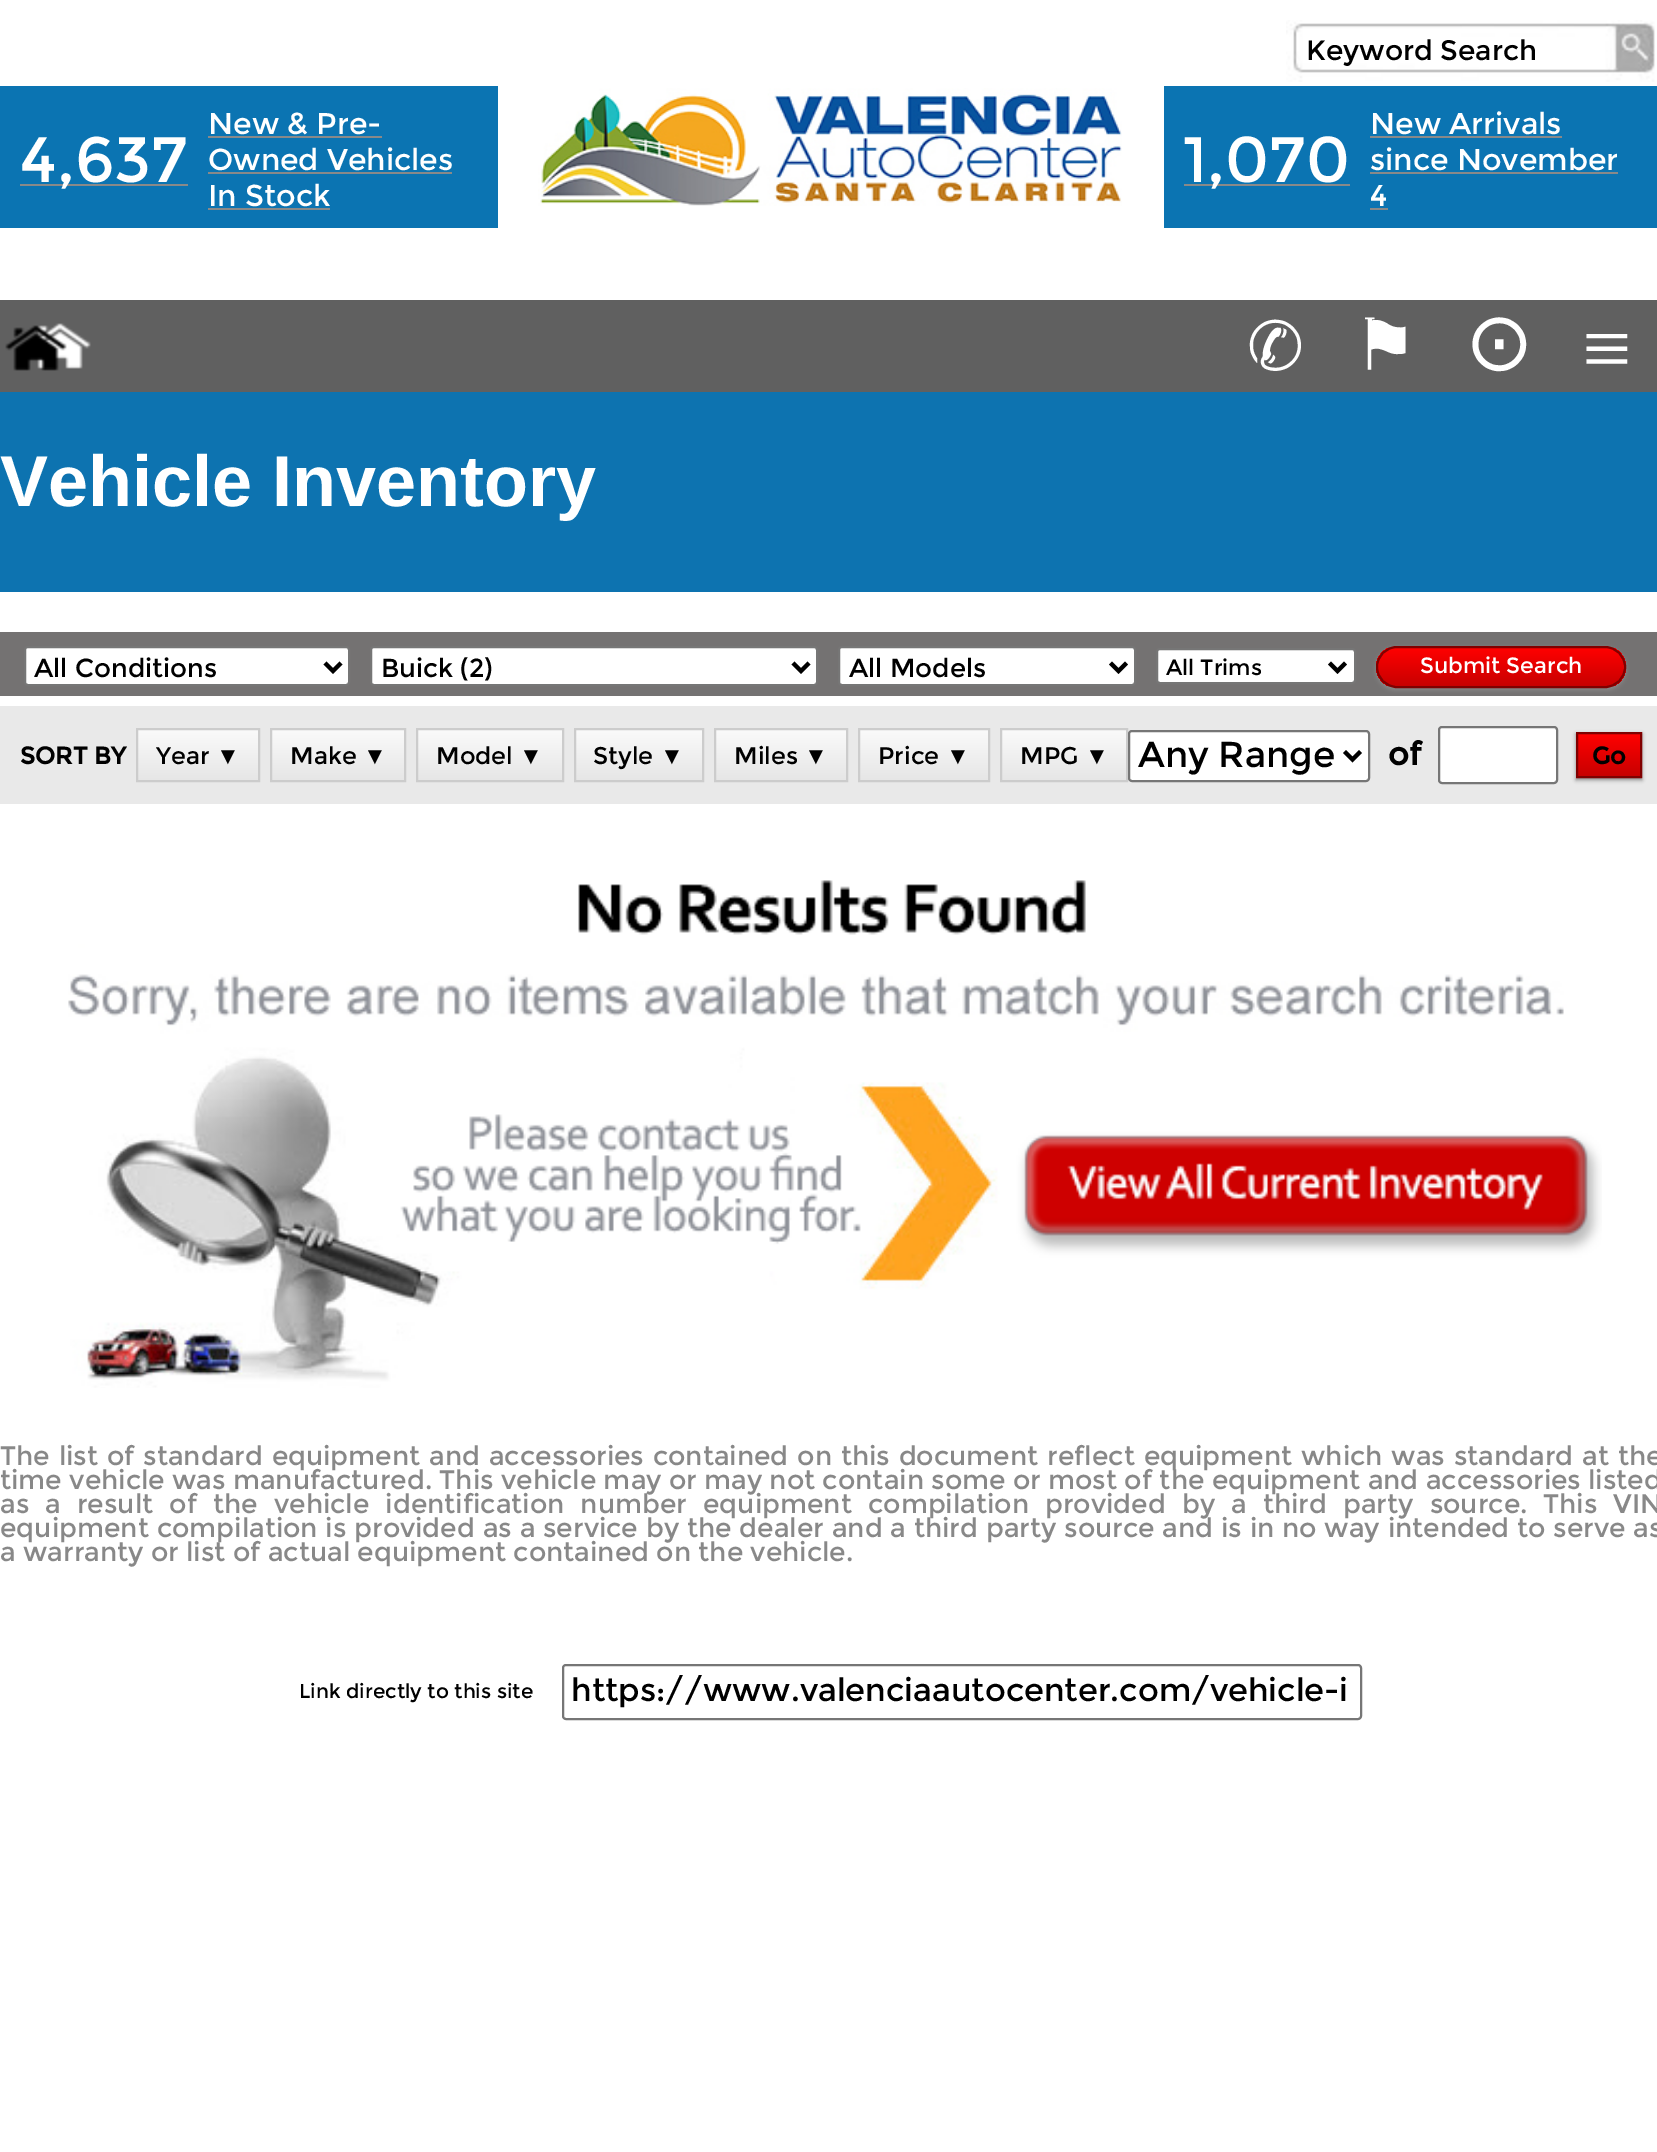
%!PS
<< /PageSize [1657 2152] /PageUsesTransparency true >> setpagedevice
/rgb { dup -16 bitshift 255 div exch dup -8 bitshift 255 and 255 div exch 255 and 255 div setrgbcolor } def
/font { [ exch dup neg 0 0 3 -1 roll 0 0 ] selectfont } def
/text { moveto show } def
/alpha { dup .setfillconstantalpha .setstrokeconstantalpha } def
/roundrect { 5 dict begin { /r /h /w /y /x } { exch def } forall
  x r add y moveto x w add y 2 copy h add r arct x w add y h add x 1 index r arct
  x y h add x y r arct x y 2 copy exch w add exch r arct closepath end } def
/shadow { 12 dict begin { /a /b /q /h /w /y /x } { exch def } forall gsave /was 0 def
  9 -2 -9 { dup b mul 4 div /e exch def 1 sub .425 mul 2.718 exch exp 1 add a .99 .min exch div /now exch def
    1 1 now sub 1 was sub div sub alpha /was now def
    w h .min e 2 mul add 0 gt { x e sub y e sub w e 2 mul add h e 2 mul add
      q e add b .6 mul add w h .min 2 div e add .min 0 .max roundrect fill } if } for grestore end } def
/picture { 5 dict begin { /h /w /y /x /name } { exch def } forall
  gsave x y translate w h scale
  w h 8 [w 0 0 h 0 0] name (r) file false 3 colorimage grestore end } def
0 .pushpdf14devicefilter
0 2152 translate 1 -1 scale
4 setmiterlimit
/s1 { /Montserrat-Regular 64 font 16#FFFFFF rgb } def
/s2 { /Montserrat-Regular 30 font 16#FFFFFF rgb } def
/s3 { /Montserrat-Regular 28 font 16#000000 rgb } def
/s4 { /DejaVuSans-Regular 68 font 16#FFFFFF rgb } def
/s5 { /DejaVuSans-Regular 72 font 16#FFFFFF rgb } def
/s6 { /DejaVuSans-Regular 82 font 16#FFFFFF rgb } def
/s7 { /LiberationSerif-Regular 88 font 16#FFFFFF rgb } def
/s8 { /LiberationSans-Bold 72 font 16#FFFFFF rgb } def
/s9 { /Montserrat-Regular 26 font 16#000000 rgb } def
/s10 { /Montserrat-Regular 22 font 16#000000 rgb } def
/s11 { /Montserrat-Regular 22 font 16#FFFFFF rgb } def
/s12 { /Montserrat-Bold 24 font 16#000000 rgb } def
/s13 { /Montserrat-Regular 24 font 16#000000 rgb } def
/s14 { /LiberationSerif-Regular 24 font 16#000000 rgb } def
/s15 { /Montserrat-Regular 36 font 16#000000 rgb } def
/s16 { /Montserrat-Bold 32 font 16#000000 rgb } def
/s17 { /Montserrat-Regular 26.67 font 16#888888 rgb } def
/s18 { /Montserrat-Regular 20 font 16#000000 rgb } def
/s19 { /Montserrat-Regular 32 font 16#000000 rgb } def
16#FFFFFF rgb
0 0 1657 2152 rectfill
16#0B74B2 rgb
0 86 498 142 rectfill
16#898989 rgb
20 184 168 2 rectfill
s1
(4,637) 20 182 text
s2
(New & Pre-) 208 134 text
16#898989 rgb
208 136 174 2 rectfill
s2
(Owned Vehicles) 208 170 text
16#898989 rgb
208 172 244 2 rectfill
s2
(In Stock) 208 206 text
16#898989 rgb
208 208 122 2 rectfill
(pic1.raw) 538 88 584 118 picture
(pic2.raw) 1286 20 369 62 picture
s3
(Keyword Search) 1306 60 text
16#0B74B2 rgb
1164 86 493 142 rectfill
16#898989 rgb
1184 184 166 2 rectfill
s1
(1,070) 1183 182 text
s2
(New Arrivals) 1370 134 text
16#898989 rgb
1370 136 192 2 rectfill
s2
(since November) 1370 170 text
16#898989 rgb
1370 172 248 2 rectfill
s2
(4) 1370 206 text
16#898989 rgb
1370 208 18 2 rectfill
16#606060 rgb
0 300 1657 92 rectfill
(pic4.raw) 37 323 54 46 picture
(pic3.raw) 5 325 62 46 picture
s4
(✆) 1247 370 text
s5
(⚑) 1353 370 text
s6
(⊙) 1465 370 text
s7
(≡) 1582 378 text
16#0D73B0 rgb
0 392 1657 200 rectfill
s8
(Vehicle Inventory) 0 506 text
16#747272 rgb
0 632 1657 64 rectfill
16#FFFFFF rgb
25 647 324 38 3 roundrect gsave fill grestore
16#767676 rgb
2 setlinewidth
stroke
16#000000 rgb
4 setlinewidth
325 663 moveto 333 671 lineto 341 663 lineto stroke
s9
(All Conditions) 34 677 text
16#FFFFFF rgb
371 647 446 38 3 roundrect gsave fill grestore
16#767676 rgb
2 setlinewidth
stroke
16#000000 rgb
4 setlinewidth
793 663 moveto 801 671 lineto 809 663 lineto stroke
(Buick \(2\)) 381 677 text
16#FFFFFF rgb
839 647 296 38 3 roundrect gsave fill grestore
16#767676 rgb
2 setlinewidth
stroke
16#000000 rgb
4 setlinewidth
1110.5 663 moveto 1118.5 671 lineto 1126.5 663 lineto stroke
(All Models) 849 677 text
16#FFFFFF rgb
1157 649 198 34 3 roundrect gsave fill grestore
16#767676 rgb
2 setlinewidth
stroke
16#000000 rgb
4 setlinewidth
1329.5 663 moveto 1337.5 671 lineto 1345.5 663 lineto stroke
s10
(All Trims) 1166 675 text
16#888888 rgb
1376 648 250 42 21 2 1 shadow
gsave
1376 646 250 42 21 roundrect clip newpath
gsave 1376 648 moveto 1626 648 lineto 1626 686 lineto 1376 686 lineto closepath clip newpath
<< /ShadingType 2 /ColorSpace /DeviceRGB /Coords [1501 648 1501 686] /Extend [true true] /Function << /FunctionType 2 /Domain [0 1] /C0 [1 0 0] /C1 [0.784 0 0] /N 1 >> >> shfill grestore
grestore
16#800000 rgb
2 setlinewidth
1377 647 248 40 20 roundrect stroke
s11
(Submit Search) 1420 673 text
16#E9E9E9 rgb
0 706 1657 98 rectfill
s12
(SORT BY) 20 764 text
gsave 138 730 moveto 258 730 lineto 258 780 lineto 138 780 lineto closepath clip newpath
<< /ShadingType 2 /ColorSpace /DeviceRGB /Coords [198 730 198 780] /Extend [true true] /Function << /FunctionType 2 /Domain [0 1] /C0 [0.98 0.98 0.98] /C1 [0.902 0.902 0.902] /N 1 >> >> shfill grestore
16#CCCCCC rgb
137 729 122 52 rectstroke
s13
(Year) 156 764 text
s14
(▼) 216 764 text
gsave 272 730 moveto 404 730 lineto 404 780 lineto 272 780 lineto closepath clip newpath
<< /ShadingType 2 /ColorSpace /DeviceRGB /Coords [338 730 338 780] /Extend [true true] /Function << /FunctionType 2 /Domain [0 1] /C0 [0.98 0.98 0.98] /C1 [0.902 0.902 0.902] /N 1 >> >> shfill grestore
16#CCCCCC rgb
271 729 134 52 rectstroke
s13
(Make) 290 764 text
s14
(▼) 363 764 text
gsave 418 730 moveto 562 730 lineto 562 780 lineto 418 780 lineto closepath clip newpath
<< /ShadingType 2 /ColorSpace /DeviceRGB /Coords [490 730 490 780] /Extend [true true] /Function << /FunctionType 2 /Domain [0 1] /C0 [0.98 0.98 0.98] /C1 [0.902 0.902 0.902] /N 1 >> >> shfill grestore
16#CCCCCC rgb
417 729 146 52 rectstroke
s13
(Model) 436 764 text
s14
(▼) 519 764 text
gsave 576 730 moveto 702 730 lineto 702 780 lineto 576 780 lineto closepath clip newpath
<< /ShadingType 2 /ColorSpace /DeviceRGB /Coords [639 730 639 780] /Extend [true true] /Function << /FunctionType 2 /Domain [0 1] /C0 [0.98 0.98 0.98] /C1 [0.902 0.902 0.902] /N 1 >> >> shfill grestore
16#CCCCCC rgb
575 729 128 52 rectstroke
s13
(Style) 593 764 text
s14
(▼) 660 764 text
gsave 716 730 moveto 846 730 lineto 846 780 lineto 716 780 lineto closepath clip newpath
<< /ShadingType 2 /ColorSpace /DeviceRGB /Coords [781 730 781 780] /Extend [true true] /Function << /FunctionType 2 /Domain [0 1] /C0 [0.98 0.98 0.98] /C1 [0.902 0.902 0.902] /N 1 >> >> shfill grestore
16#CCCCCC rgb
715 729 132 52 rectstroke
s13
(Miles) 734 764 text
s14
(▼) 804 764 text
gsave 860 730 moveto 988 730 lineto 988 780 lineto 860 780 lineto closepath clip newpath
<< /ShadingType 2 /ColorSpace /DeviceRGB /Coords [924 730 924 780] /Extend [true true] /Function << /FunctionType 2 /Domain [0 1] /C0 [0.98 0.98 0.98] /C1 [0.902 0.902 0.902] /N 1 >> >> shfill grestore
16#CCCCCC rgb
859 729 130 52 rectstroke
s13
(Price) 878 764 text
s14
(▼) 946 764 text
gsave 1002 730 moveto 1126 730 lineto 1126 780 lineto 1002 780 lineto closepath clip newpath
<< /ShadingType 2 /ColorSpace /DeviceRGB /Coords [1064 730 1064 780] /Extend [true true] /Function << /FunctionType 2 /Domain [0 1] /C0 [0.98 0.98 0.98] /C1 [0.902 0.902 0.902] /N 1 >> >> shfill grestore
16#CCCCCC rgb
1001 729 126 52 rectstroke
s13
(MPG) 1020 764 text
s14
(▼) 1085 764 text
16#FFFFFF rgb
1129 731 240 50 3 roundrect gsave fill grestore
16#767676 rgb
stroke
16#000000 rgb
4 setlinewidth
1344.5 751.5 moveto 1352.5 759.5 lineto 1360.5 751.5 lineto stroke
s15
(Any Range) 1138 767 text
s16
(of) 1388 765 text
16#FFFFFF rgb
1439 727 118 56 3 roundrect gsave fill grestore
16#767676 rgb
2 setlinewidth
stroke
16#888888 rgb
1576 734 66 46 0 2 1 shadow
gsave 1578 734 moveto 1640 734 lineto 1640 776 lineto 1578 776 lineto closepath clip newpath
<< /ShadingType 2 /ColorSpace /DeviceRGB /Coords [1609 734 1609 776] /Extend [true true] /Function << /FunctionType 2 /Domain [0 1] /C0 [1 0 0] /C1 [0.784 0 0] /N 1 >> >> shfill grestore
16#800000 rgb
1577 733 64 44 rectstroke
s12
(Go) 1592 764 text
(pic5.raw) 68 880 1534 508 picture
/Montserrat-Regular 26.67 font
16#888888 rgb
0 1465 moveto 1.5 0 32 (The list of standard equipment and accessories contained on this document reflect equipment which was standard at the) widthshow
(time vehicle was manufactured. This vehicle may or may not contain some or most of the equipment and accessories listed) 0 1489 text
0 1513 moveto 8.75 0 32 (as a result of the vehicle identification number equipment compilation provided by a third party source.) widthshow
1543 1513 moveto 8.75 0 32 (This VIN) widthshow
0 1537 moveto 0.5 0 32 (equipment compilation is provided as a service by the dealer and a third party source and is in no way intended to serve as) widthshow
(a warranty or list of actual equipment contained on the vehicle.) 0 1561 text
s18
(Link directly to this site) 299 1698 text
16#767676 rgb
563 1665 798 54 3 roundrect stroke
s19
(https://www.valenciaautocenter.com/vehicle-i) 571 1701 text
.poppdf14devicefilter showpage
